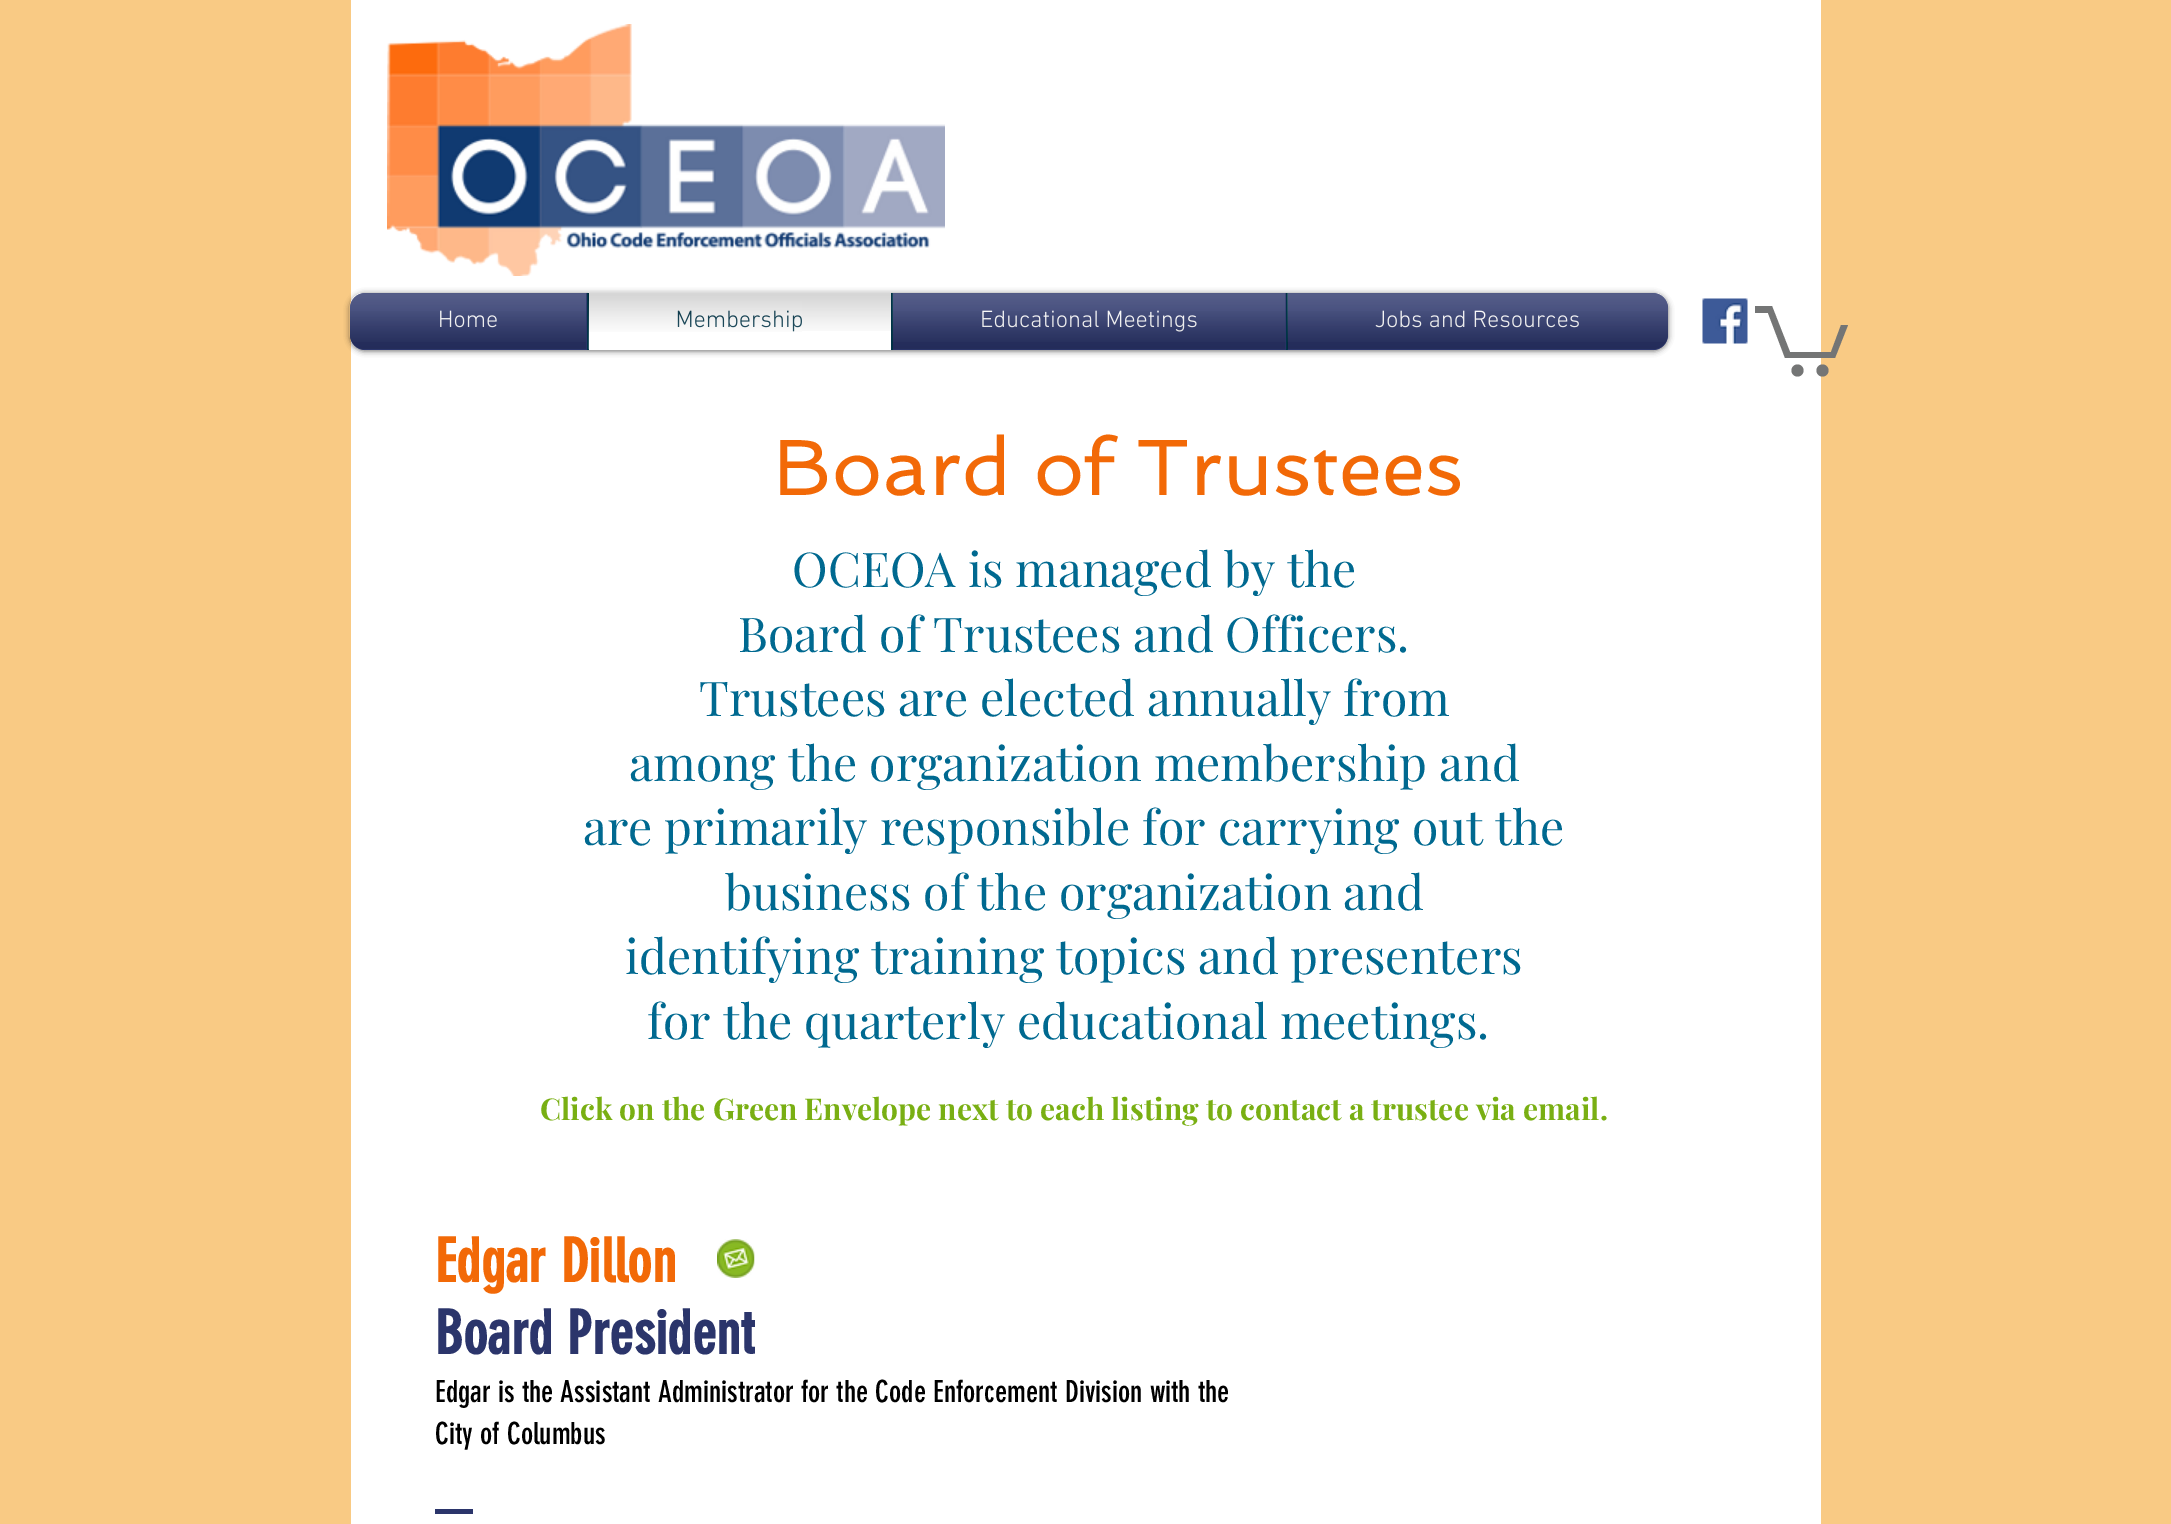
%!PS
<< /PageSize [2171 1524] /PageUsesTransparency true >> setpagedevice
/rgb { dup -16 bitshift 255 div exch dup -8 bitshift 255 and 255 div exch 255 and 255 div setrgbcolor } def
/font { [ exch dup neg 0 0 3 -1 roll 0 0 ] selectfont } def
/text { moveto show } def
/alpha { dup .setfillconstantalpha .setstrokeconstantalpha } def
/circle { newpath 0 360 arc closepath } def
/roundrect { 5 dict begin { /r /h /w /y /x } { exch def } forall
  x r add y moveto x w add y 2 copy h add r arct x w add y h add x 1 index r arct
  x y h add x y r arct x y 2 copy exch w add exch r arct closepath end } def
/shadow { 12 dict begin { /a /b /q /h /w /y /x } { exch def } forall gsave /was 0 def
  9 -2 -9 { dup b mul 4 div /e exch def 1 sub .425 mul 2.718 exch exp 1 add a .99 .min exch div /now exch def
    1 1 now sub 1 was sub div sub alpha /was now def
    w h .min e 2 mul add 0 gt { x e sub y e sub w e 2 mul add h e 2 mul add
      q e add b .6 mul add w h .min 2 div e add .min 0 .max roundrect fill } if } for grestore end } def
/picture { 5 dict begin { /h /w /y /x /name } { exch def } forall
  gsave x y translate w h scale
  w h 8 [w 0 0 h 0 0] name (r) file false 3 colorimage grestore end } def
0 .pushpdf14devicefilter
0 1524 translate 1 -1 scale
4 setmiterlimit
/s1 { /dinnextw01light-Light 24 font 16#FFFFFF rgb } def
/s2 { /dinnextw01light-Light 24 font 16#003448 rgb } def
/s3 { /Spinnaker-Regular 79.5 font 16#F26907 rgb } def
/s4 { /PlayfairDisplay-Regular 48 font 16#006990 rgb } def
/s5 { /PlayfairDisplay-Bold 30 font 16#79AF13 rgb } def
/s6 { /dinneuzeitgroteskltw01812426-Bold 60 font 16#F26907 rgb } def
/s7 { /dinneuzeitgroteskltw01812426-Bold 60 font 16#2B356B rgb } def
/s8 { /dinneuzeitgroteskltw01812426-Regular 30 font 16#000000 rgb } def
16#F9CA84 rgb
0 0 2171 1524 rectfill
16#FFFFFF rgb
351 0 1470 392 rectfill
(pic1.raw) 387 24 558 252 picture
16#000000 rgb
350 294 1318 57 15 3 0.6 shadow
(pic2.raw) 349 293 1319 48 picture
(pic3.raw) 350 335 1318 14 picture
16#2B356B rgb
365 293 moveto 587 293 lineto 587 350 lineto 365 350 lineto 356.5 350 350 343.5 350 335 curveto 350 308 lineto 350 299.5 356.5 293 365 293 curveto closepath fill
s1
(Home) 438 327 text
(pic4.raw) 350 293 237 48 picture
(pic5.raw) 350 311 237 38 picture
589 293 302 57 rectfill
16#003448 rgb
587 293 2 57 rectfill
(Membership) 676 327 text
(pic6.raw) 588 292 303 39 picture
(pic7.raw) 588 301 214 49 picture
16#2B356B rgb
893 293 393 57 rectfill
16#003448 rgb
891 293 2 57 rectfill
s1
(Educational Meetings) 980 327 text
(pic8.raw) 892 293 394 48 picture
(pic9.raw) 892 311 394 39 picture
16#2B356B rgb
1286 293 moveto 1653 293 lineto 1661.5 293 1668 299.5 1668 308 curveto 1668 335 lineto 1668 343.5 1661.5 350 1653 350 curveto 1286 350 lineto closepath fill
16#003448 rgb
1286 293 2 57 rectfill
s1
(Jobs and Resources) 1375 327 text
(pic10.raw) 1287 293 381 48 picture
(pic11.raw) 1287 311 381 38 picture
(pic12.raw) 1702 298 46 46 picture
16#747575 rgb
1848 325 moveto 1835 358 lineto 1785 358 lineto 1768 313 lineto 1755 313 lineto 1755 306 lineto 1772 306 lineto 1790 352 lineto 1831 352 lineto 1841 325 lineto fill
1822.5 370.5 6 circle fill
1797.5 370.5 6 circle fill
16#FFFFFF rgb
351 392 1470 1132 rectfill
s3
(Board of Trustees) 773 495 text
s4
(OCEOA is managed by the) 792 587 text
(Board of Trustees and Officers.) 738 652 text
(Trustees are elected annually from) 699 716 text
(among the organization membership and) 629 781 text
(are primarily responsible for carrying out the) 583 845 text
(business of the organization and) 725 910 text
(identifying training topics and presenters) 625 974 text
(for the quarterly educational meetings.) 647 1039 text
s5
(Click on the Green Envelope next to each listing to contact a trustee via email.) 540 1120 text
s6
(Edgar Dillon) 435 1282 text
s7
(Board President) 435 1354 text
s8
(Edgar is the Assistant Administrator for the Code Enforcement Division with the) 435 1402 text
(City of Columbus) 435 1444 text
(pic13.raw) 717 1239 38 39 picture
16#2B356B rgb
435 1509 38 5 rectfill
.poppdf14devicefilter showpage
